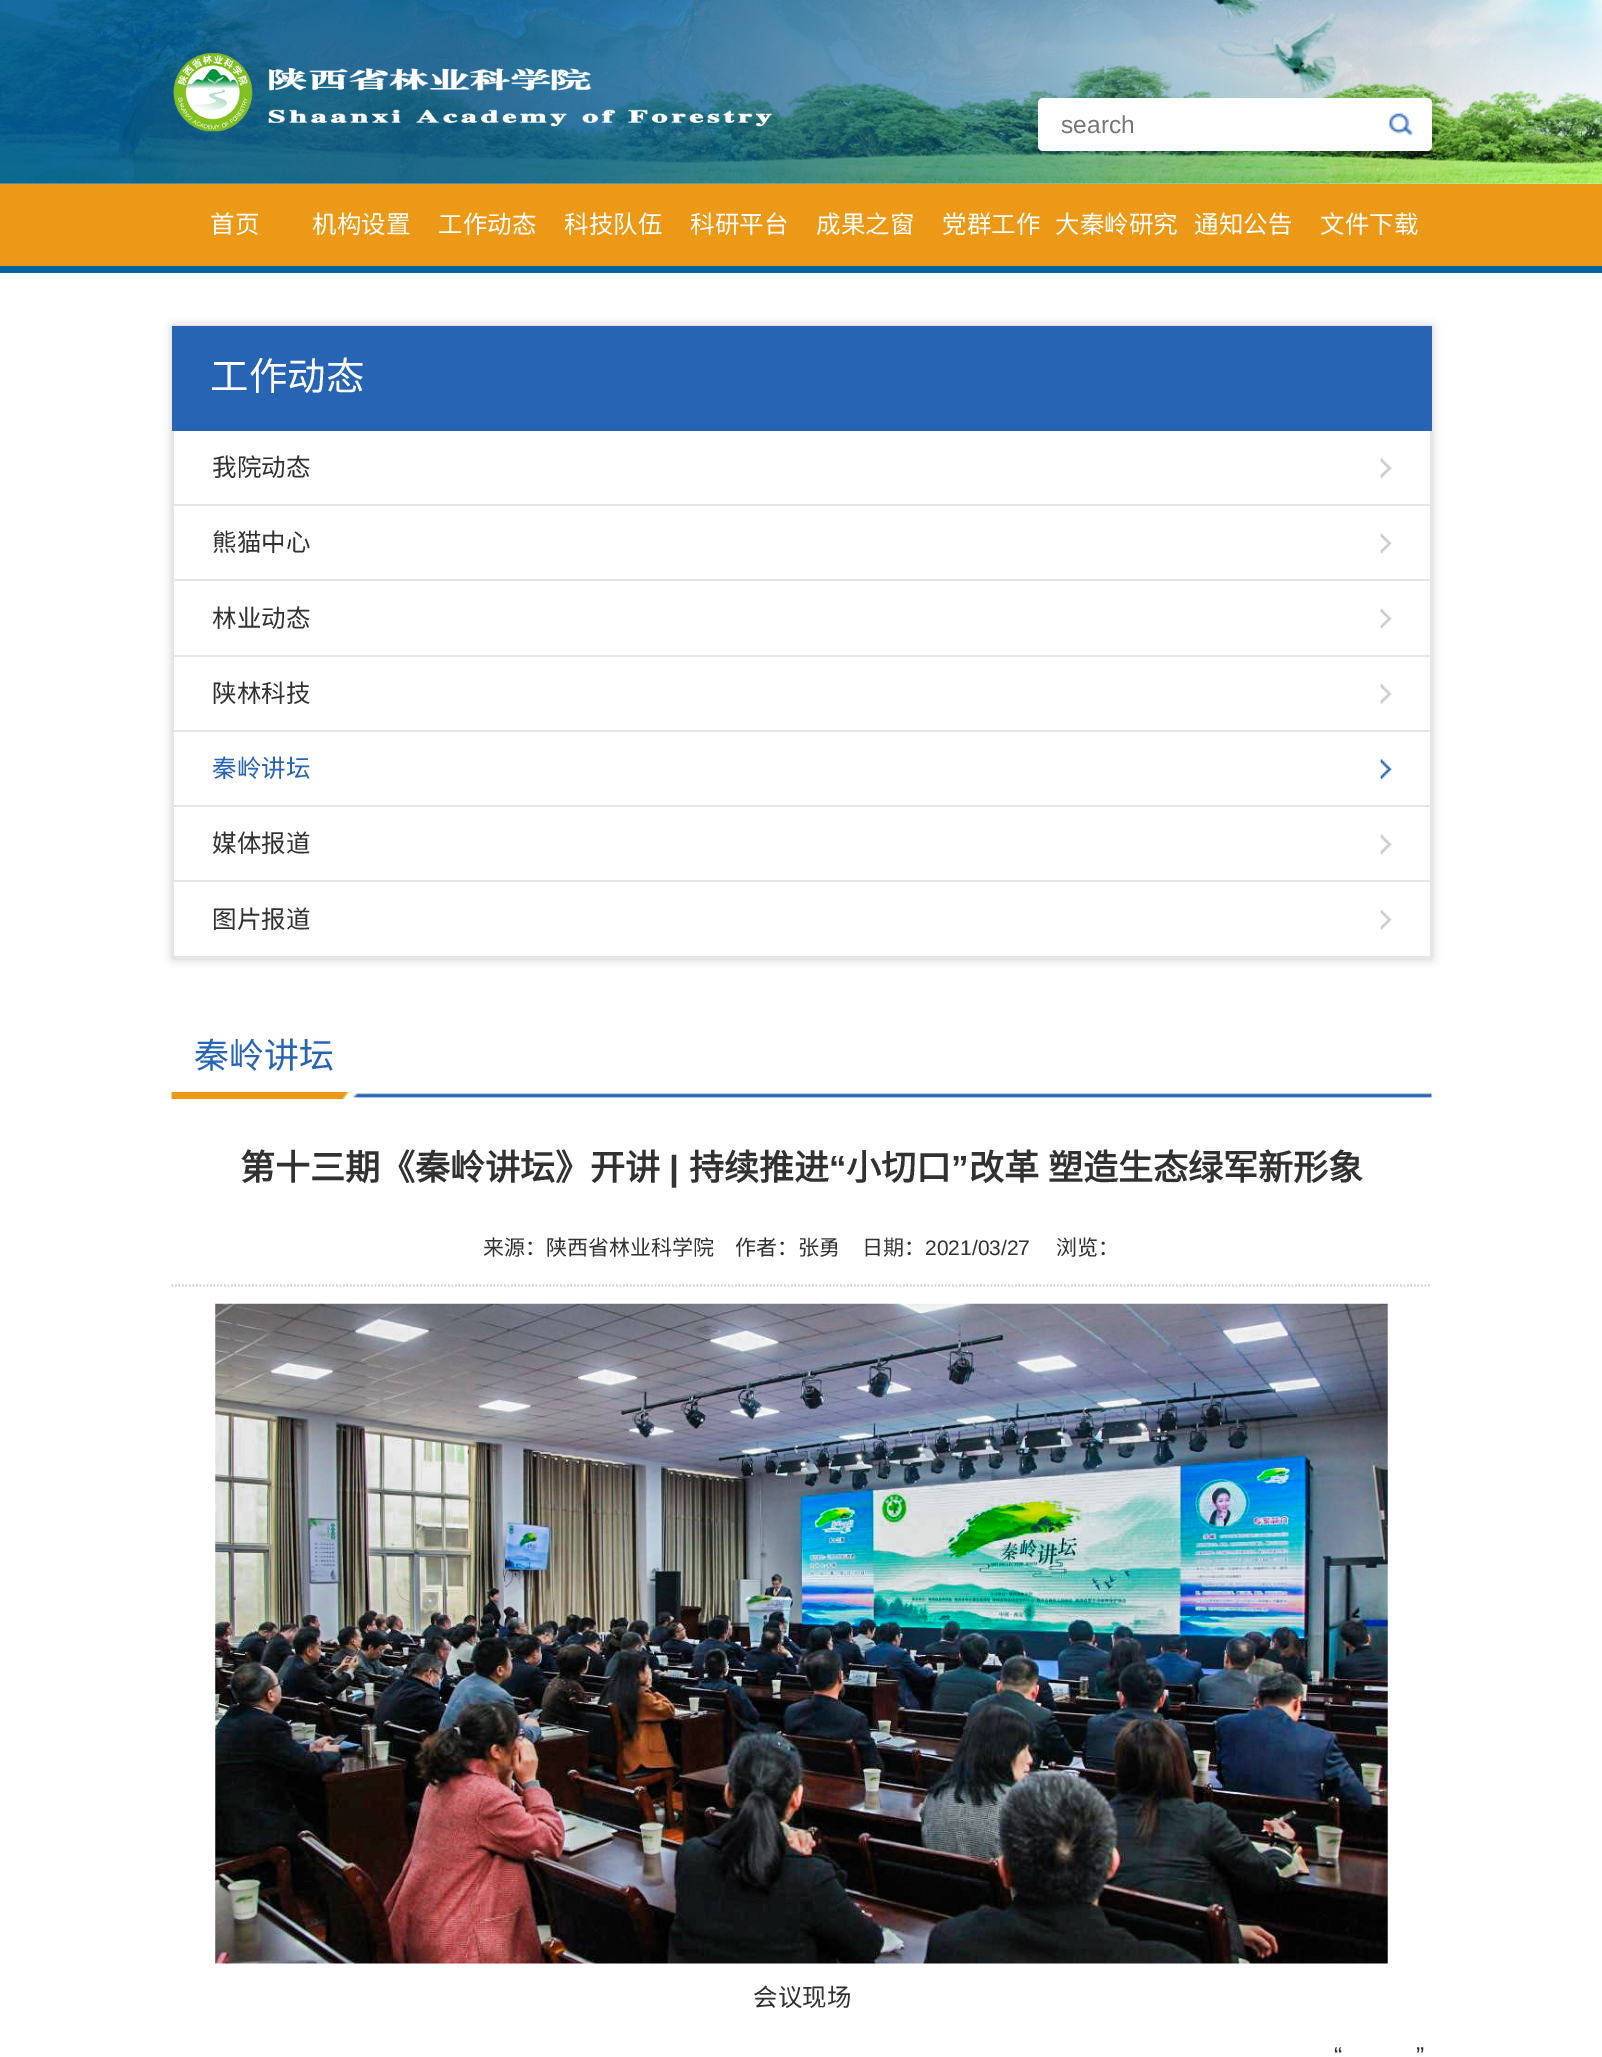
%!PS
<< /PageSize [1602 2057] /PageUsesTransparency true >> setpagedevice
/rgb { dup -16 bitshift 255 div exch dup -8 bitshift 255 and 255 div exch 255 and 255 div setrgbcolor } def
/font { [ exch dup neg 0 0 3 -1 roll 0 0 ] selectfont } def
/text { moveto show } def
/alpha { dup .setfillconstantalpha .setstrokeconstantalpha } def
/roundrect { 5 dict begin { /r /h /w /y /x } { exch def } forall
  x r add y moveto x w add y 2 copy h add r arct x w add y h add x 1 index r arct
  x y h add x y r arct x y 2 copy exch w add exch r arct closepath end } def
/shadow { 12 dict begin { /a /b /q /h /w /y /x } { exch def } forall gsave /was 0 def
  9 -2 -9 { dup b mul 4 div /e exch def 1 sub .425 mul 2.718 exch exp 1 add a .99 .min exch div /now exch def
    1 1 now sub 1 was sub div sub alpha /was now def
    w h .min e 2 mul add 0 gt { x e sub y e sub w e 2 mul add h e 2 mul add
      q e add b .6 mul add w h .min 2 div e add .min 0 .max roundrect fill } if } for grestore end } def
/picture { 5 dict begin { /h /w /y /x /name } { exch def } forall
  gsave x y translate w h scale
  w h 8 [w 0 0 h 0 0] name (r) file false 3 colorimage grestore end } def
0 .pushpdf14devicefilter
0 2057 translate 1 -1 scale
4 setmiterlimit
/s1 { /LiberationSans-Regular 24.5 font 16#757575 rgb } def
/s2 { /NotoSansCJKSC-Regular 24.5 font 16#FFFFFF rgb } def
/s3 { /NotoSansCJKSC-Regular 38.5 font 16#FFFFFF rgb } def
/s4 { /NotoSansCJKSC-Regular 24.5 font 16#313131 rgb } def
/s5 { /NotoSansCJKSC-Regular 24.5 font 16#2764B3 rgb } def
/s6 { /NotoSansCJKSC-Regular 35 font 16#2764B3 rgb } def
/s7 { /NotoSansCJKSC-Bold 35 font 16#313131 rgb } def
/s8 { /LiberationSans-Bold 35 font 16#313131 rgb } def
/s9 { /NotoSansCJKSC-Regular 21 font 16#313131 rgb } def
/s10 { /LiberationSans-Regular 21 font 16#313131 rgb } def
/s11 { /LiberationSans-Regular 24.5 font 16#313131 rgb } def
16#FFFFFF rgb
0 0 1602 2057 rectfill
(pic1.raw) 0 0 1602 184 picture
(pic2.raw) 173 53 600 79 picture
1038 98 394 53 5 roundrect fill
s1
(search) 1061 133 text
(pic3.raw) 1389 113 24 23 picture
16#EB9917 rgb
0 184 1602 82 rectfill
s2
(首页) 210 233 text
(机构设置) 312 233 text
(工作动态) 438 233 text
(科技队伍) 564 233 text
(科研平台) 690 233 text
(成果之窗) 816 233 text
(党群工作) 942 233 text
(大秦岭研究) 1055 233 text
(通知公告) 1194 233 text
(文件下载) 1320 233 text
16#0064A2 rgb
0 266 1602 7 rectfill
16#CCCCCC rgb
172 326 1260 633 0 4.5 1 shadow
16#2764B3 rgb
172 326 1260 105 rectfill
s3
(工作动态) 210 390 text
174 431 1256 525 rectfill
16#E5E5E5 rgb
1430 431 2 528 rectfill
172 957 1260 2 rectfill
172 431 2 528 rectfill
173 504 1257 2 rectfill
(pic4.raw) 1380 458 12 20 picture
s4
(我院动态) 212 476 text
16#E5E5E5 rgb
173 579 1257 2 rectfill
(pic5.raw) 1380 533 12 20 picture
s4
(熊猫中心) 212 551 text
16#E5E5E5 rgb
173 655 1257 2 rectfill
(pic6.raw) 1380 609 12 20 picture
s4
(林业动态) 212 627 text
16#E5E5E5 rgb
173 730 1257 2 rectfill
(pic7.raw) 1380 684 12 20 picture
s4
(陕林科技) 212 702 text
16#E5E5E5 rgb
173 805 1257 2 rectfill
(pic8.raw) 1380 759 12 20 picture
s5
(秦岭讲坛) 212 777 text
16#E5E5E5 rgb
173 880 1257 2 rectfill
(pic5.raw) 1380 834 12 20 picture
s4
(媒体报道) 212 852 text
16#E5E5E5 rgb
173 956 1257 1 rectfill
(pic6.raw) 1380 910 12 20 picture
s4
(图片报道) 212 928 text
(pic9.raw) 171 1092 1261 7 picture
s6
(秦岭讲坛) 194 1068 text
s7
(第十三期《秦岭讲坛》开讲) 240 1180 text
s8
(|) 669 1180 text
s7
(持续推进) 689 1180 text
s8
(“) 829 1180 text
s7
(小切口) 846 1180 text
s8
(”) 951 1180 text
s7
(改革) 969 1180 text
(塑造生态绿军新形象) 1048 1180 text
16#CCCCCC rgb
1.8 setlinewidth
[1.75 1.75] 0 setdash
171.5 1285.5 moveto 1431.5 1285.5 lineto stroke
s9
(来源：陕西省林业科学院) 483 1255 text
(作者：张勇) 735 1255 text
(日期：) 862 1255 text
s10
(2021/03/27) 925 1255 text
s9
(浏览：) 1056 1255 text
(pic10.raw) 215 1303 1173 661 picture
s4
(会议现场) 753 2006 text
s11
(“) 1334 2064 text
(”) 1416 2064 text
.poppdf14devicefilter showpage
